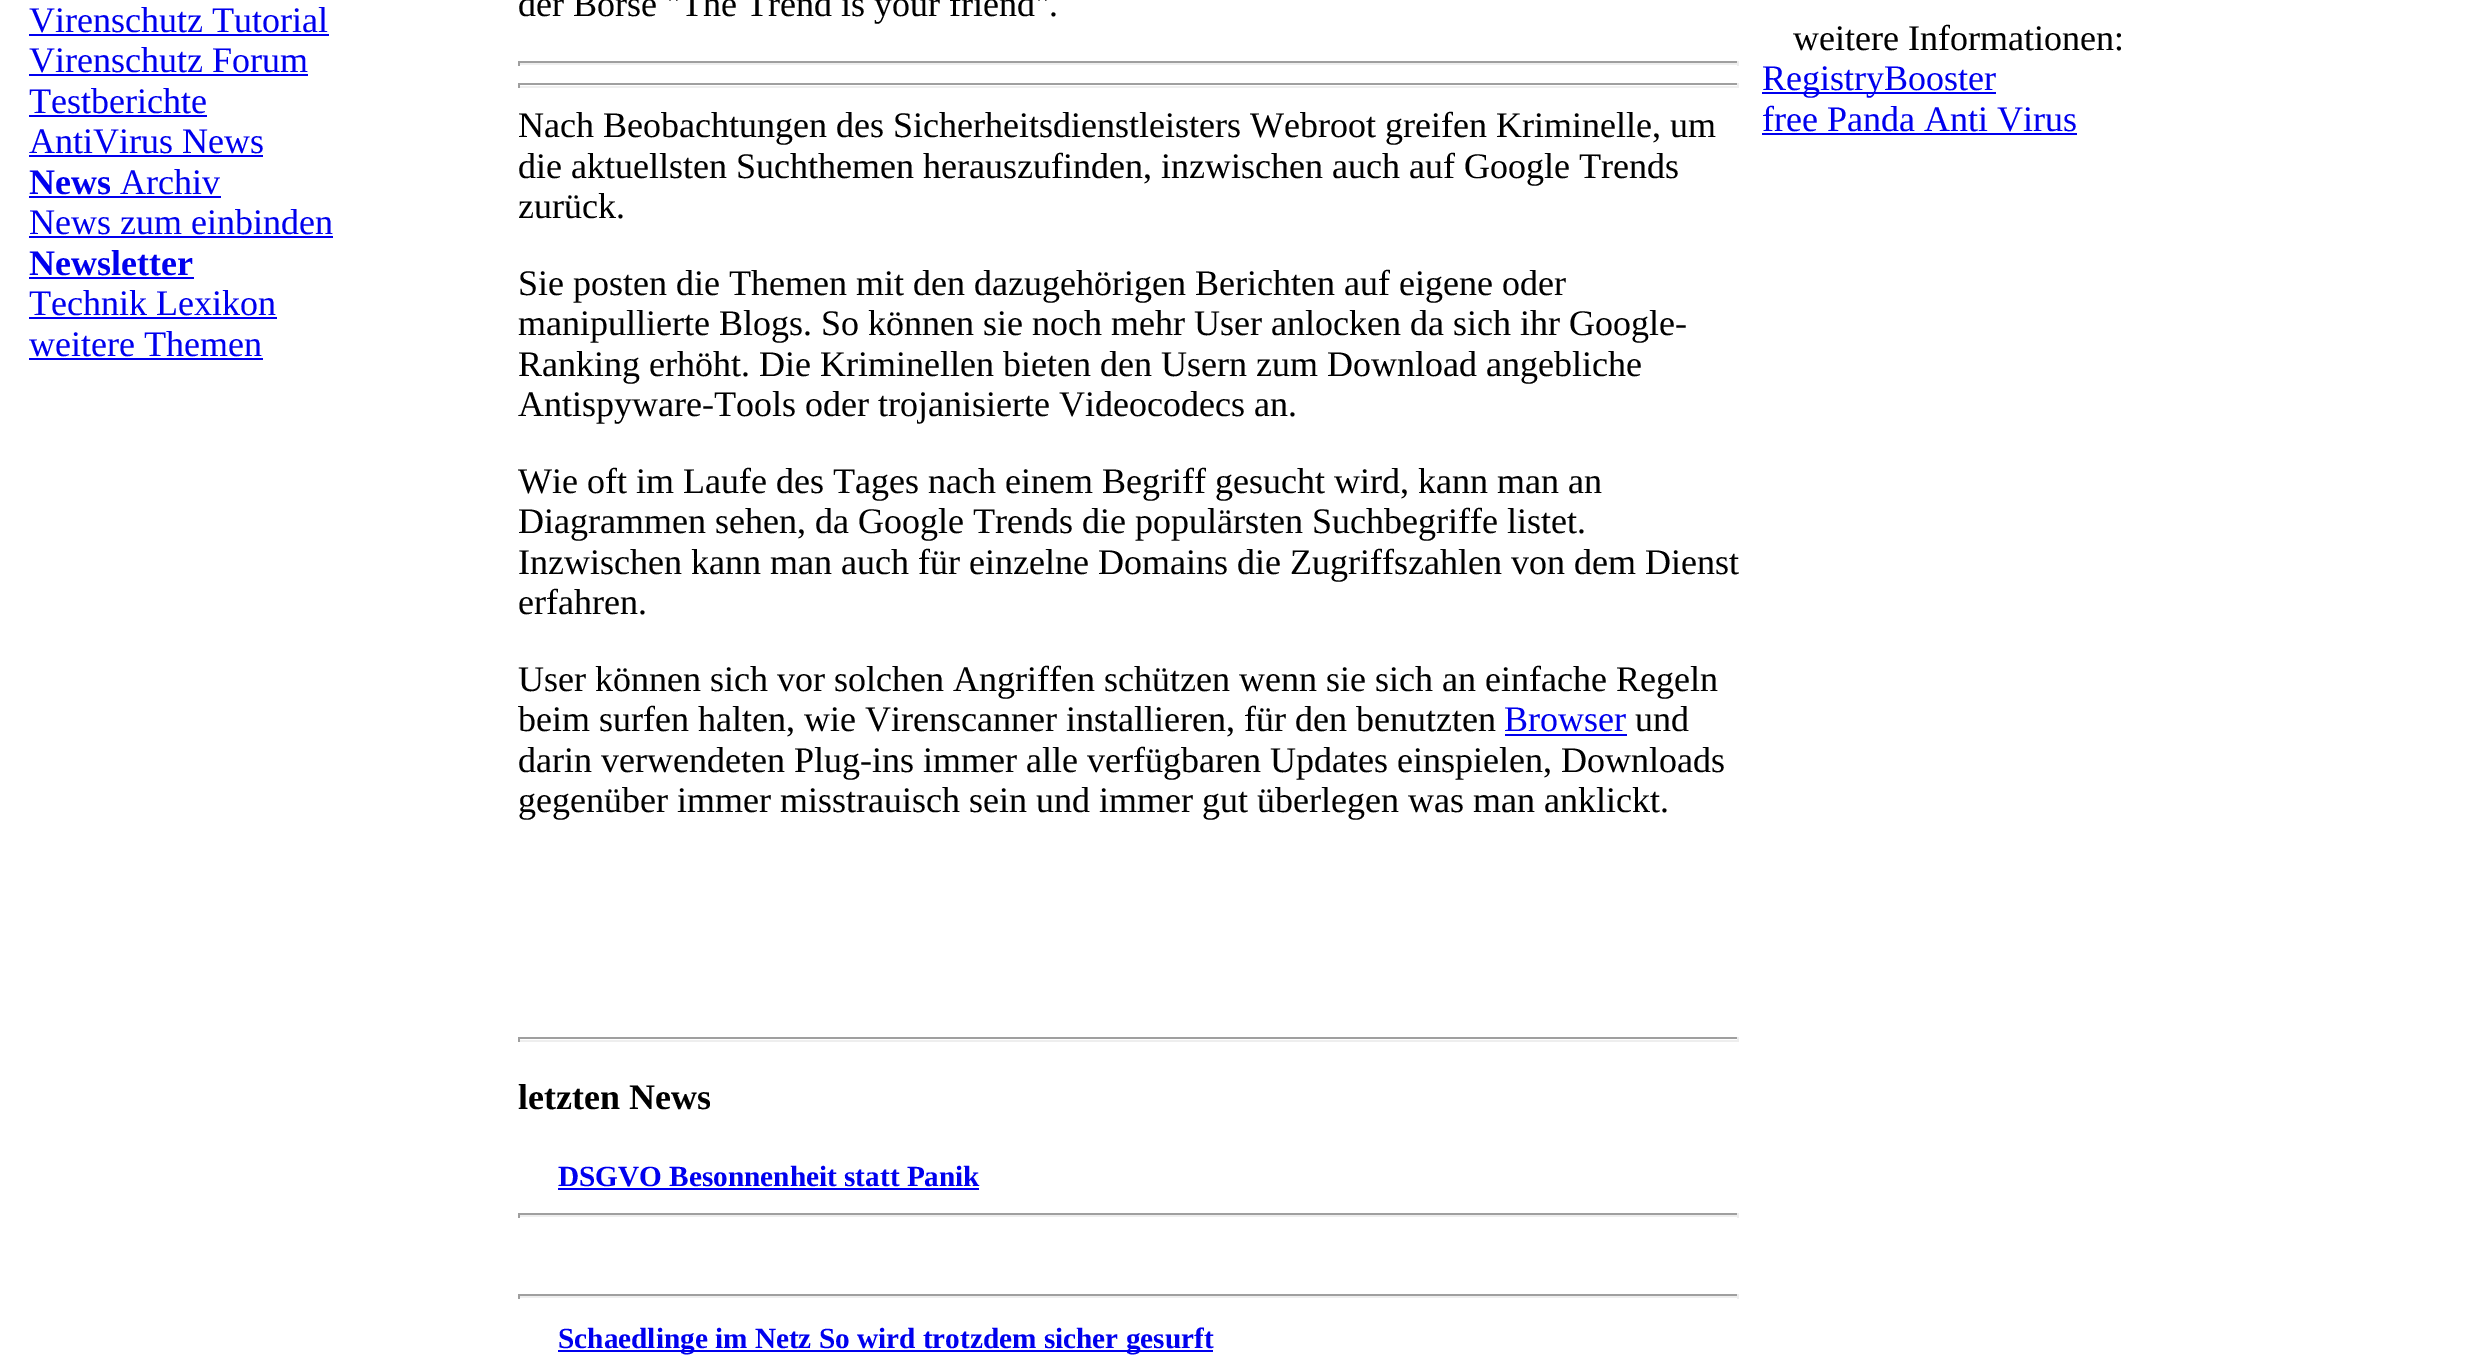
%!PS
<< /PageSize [2478 1370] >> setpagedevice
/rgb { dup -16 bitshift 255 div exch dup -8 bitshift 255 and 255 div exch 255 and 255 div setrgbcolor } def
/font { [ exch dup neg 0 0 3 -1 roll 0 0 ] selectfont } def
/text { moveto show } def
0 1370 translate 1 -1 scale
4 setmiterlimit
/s1 { /LiberationSerif-Regular 36 font 16#0000EE rgb } def
/s2 { /LiberationSerif-Bold 36 font 16#0000EE rgb } def
/s3 { /LiberationSerif-Regular 36 font 16#000000 rgb } def
/s4 { /LiberationSerif-Bold 36 font 16#000000 rgb } def
/s5 { /LiberationSerif-Bold 29.25 font 16#0000EE rgb } def
16#FFFFFF rgb
0 0 2478 1370 rectfill
s1
(Virenschutz Tutorial) 29 32 text
29 34 300 2 rectfill
(Virenschutz Forum) 29 72 text
29 74 279 2 rectfill
(Testberichte) 29 113 text
29 115 178 2 rectfill
(AntiVirus News) 29 153 text
29 155 234 2 rectfill
s2
(News) 29 194 text
29 196 192 2 rectfill
s1
(Archiv) 120 194 text
(News zum einbinden) 29 234 text
29 236 304 2 rectfill
s2
(Newsletter) 29 275 text
29 277 165 2 rectfill
s1
(Technik Lexikon) 29 315 text
29 317 248 2 rectfill
(weitere Themen) 29 356 text
29 358 234 2 rectfill
s3
(der Börse "The Trend is your friend".) 518 16 text
16#9F9F9F rgb
518 61 1221 2 rectfill
16#EEEEEE rgb
1737 61 2 5 rectfill
518 63 1221 2 rectfill
16#9F9F9F rgb
518 61 2 5 rectfill
518 83 1221 2 rectfill
16#EEEEEE rgb
1737 83 2 5 rectfill
518 86 1221 2 rectfill
16#9F9F9F rgb
518 83 2 5 rectfill
s3
(Nach Beobachtungen des Sicherheitsdienstleisters Webroot greifen Kriminelle, um) 518 137 text
(die aktuellsten Suchthemen herauszufinden, inzwischen auch auf Google Trends) 518 178 text
(zurück.) 518 218 text
(Sie posten die Themen mit den dazugehörigen Berichten auf eigene oder) 518 295 text
(manipullierte Blogs. So können sie noch mehr User anlocken da sich ihr Google-) 518 335 text
(Ranking erhöht. Die Kriminellen bieten den Usern zum Download angebliche) 518 376 text
(Antispyware-Tools oder trojanisierte Videocodecs an.) 518 416 text
(Wie oft im Laufe des Tages nach einem Begriff gesucht wird, kann man an) 518 493 text
(Diagrammen sehen, da Google Trends die populärsten Suchbegriffe listet.) 518 533 text
(Inzwischen kann man auch für einzelne Domains die Zugriffszahlen von dem Dienst) 518 574 text
(erfahren.) 518 614 text
(User können sich vor solchen Angriffen schützen wenn sie sich an einfache Regeln) 518 691 text
(beim surfen halten, wie Virenscanner installieren, für den benutzten) 518 731 text
s1
(Browser) 1504 731 text
1505 734 122 2 rectfill
s3
(und) 1635 731 text
(darin verwendeten Plug-ins immer alle verfügbaren Updates einspielen, Downloads) 518 772 text
(gegenüber immer misstrauisch sein und immer gut überlegen was man anklickt.) 518 812 text
16#9F9F9F rgb
518 1037 1221 2 rectfill
16#EEEEEE rgb
1737 1037 2 5 rectfill
518 1040 1221 2 rectfill
16#9F9F9F rgb
518 1037 2 5 rectfill
s4
(letzten News) 518 1109 text
s5
(DSGVO Besonnenheit statt Panik) 558 1186 text
558 1188 421 2 rectfill
16#9F9F9F rgb
518 1213 1221 2 rectfill
16#EEEEEE rgb
1737 1213 2 5 rectfill
518 1215 1221 2 rectfill
16#9F9F9F rgb
518 1213 2 5 rectfill
518 1294 1221 2 rectfill
16#EEEEEE rgb
1737 1294 2 5 rectfill
518 1296 1221 2 rectfill
16#9F9F9F rgb
518 1294 2 5 rectfill
16#0000EE rgb
558 1350 655 2 rectfill
(Schaedlinge im Netz So wird trotzdem sicher gesurft) 558 1348 text
s3
(weitere Informationen:) 1793 50 text
16#0000EE rgb
1762 92 234 2 rectfill
(RegistryBooster) 1762 90 text
(free Panda Anti Virus) 1762 131 text
1762 133 315 2 rectfill
showpage
